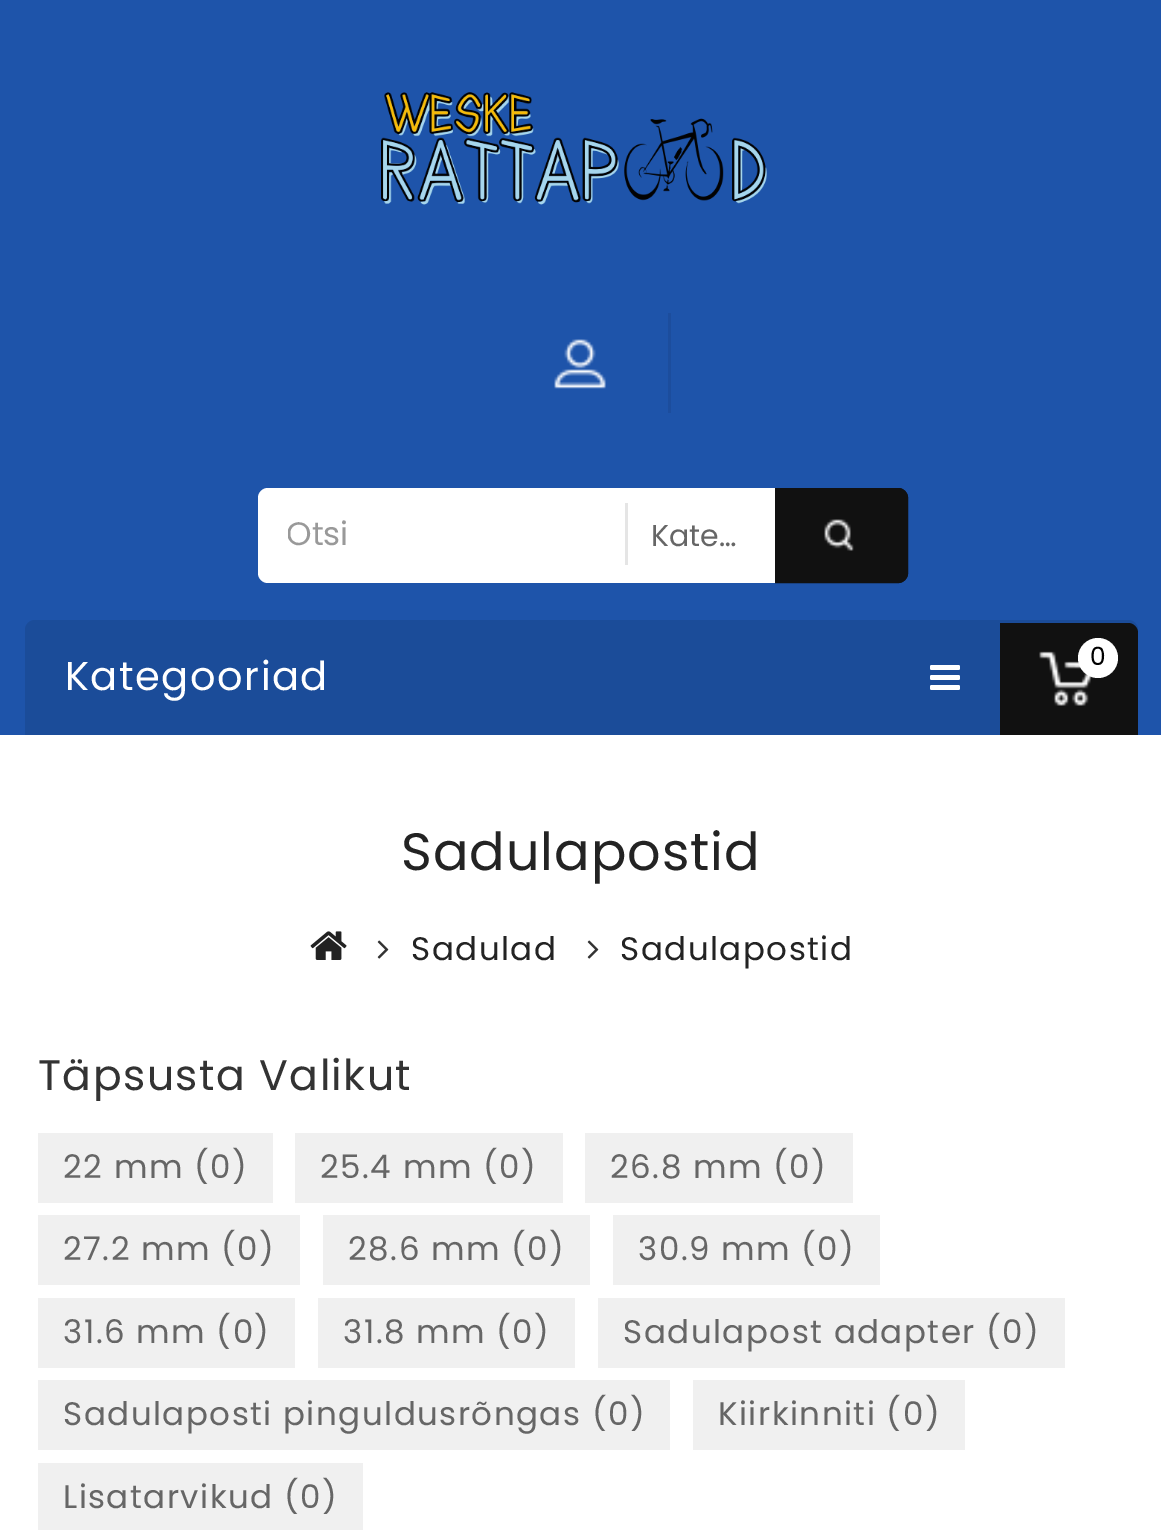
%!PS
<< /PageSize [1161 1530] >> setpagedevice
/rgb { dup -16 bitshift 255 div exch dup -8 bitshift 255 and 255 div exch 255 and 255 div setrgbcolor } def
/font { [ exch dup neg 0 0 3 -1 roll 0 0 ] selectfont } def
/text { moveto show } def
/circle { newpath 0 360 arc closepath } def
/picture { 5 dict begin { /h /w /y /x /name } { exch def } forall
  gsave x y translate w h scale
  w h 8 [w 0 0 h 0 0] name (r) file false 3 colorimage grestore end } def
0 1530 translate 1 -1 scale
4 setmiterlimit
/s1 { /Poppins-Regular 32.5 font 16#999999 rgb } def
/s2 { /Poppins-Regular 30 font 16#666666 rgb } def
/s3 { /Poppins-Regular 25 font 16#000000 rgb } def
16#FFFFFF rgb
0 0 1161 1530 rectfill
16#1E54AA rgb
0 0 1161 735 rectfill
(pic1.raw) 381 92 386 113 picture
16#1C4D9D rgb
668 313 3 100 rectfill
(pic2.raw) 554 339 52 50 picture
16#FFFFFF rgb
268 488 moveto 625 488 lineto 625 583 lineto 268 583 lineto 262.5 583 258 578.5 258 573 curveto 258 498 lineto 258 492.5 262.5 488 268 488 curveto closepath fill
gsave
288 510 307 50 rectclip
s1
(Otsi) 286 545 text
grestore
625 488 150 95 rectfill
16#E5E5E5 rgb
625 503 3 62 rectfill
s2
(Kate…) 651 546 text
16#111111 rgb
775 488 moveto 898 488 lineto 903.5 488 908 492.5 908 498 curveto 908 573 lineto 908 578.5 903.5 583 898 583 curveto 775 583 lineto closepath fill
(pic3.raw) 824 519 30 32 picture
3 setlinewidth
776.5 489.5 moveto 898 489.5 lineto 902.5 489.5 906.5 493.5 906.5 498 curveto 906.5 573 lineto 906.5 577.5 902.5 581.5 898 581.5 curveto 776.5 581.5 lineto closepath stroke
16#1B4C99 rgb
35 620 moveto 1128 620 lineto 1133.5 620 1138 624.5 1138 630 curveto 1138 735 lineto 25 735 lineto 25 630 lineto 25 624.5 29.5 620 35 620 curveto closepath fill
16#111111 rgb
1000 623 moveto 1128 623 lineto 1133.5 623 1138 627.5 1138 633 curveto 1138 735 lineto 1000 735 lineto closepath fill
(pic4.raw) 1039 651 54 55 picture
16#FFFFFF rgb
1098 658 20 circle fill
s3
(0) 1090 665 text
/Poppins-Regular 40 font
16#FFFFFF rgb
65 690 moveto 1.5 0 (Kategooriad) ashow
(pic5.raw) 930 665 30 25 picture
/Poppins-Regular 52.5 font
16#232323 rgb
401 870 moveto 1 0 (Sadulapostid) ashow
(pic6.raw) 310 931 37 29 picture
(pic7.raw) 377 940 12 19 picture
/Poppins-Regular 32.5 font
411 960 moveto 1.5 0 (Sadulad) ashow
(pic7.raw) 587 940 12 19 picture
620 960 moveto 1.5 0 (Sadulapostid) ashow
/Poppins-Regular 42.5 font
16#333333 rgb
38 1090 moveto 1.5 0 (Täpsusta Valikut) ashow
16#F0F0F0 rgb
38 1133 235 70 rectfill
/Poppins-Regular 32.5 font
16#666666 rgb
63 1178 moveto 1.5 0 (22 mm \(0\)) ashow
16#F0F0F0 rgb
295 1133 268 70 rectfill
16#666666 rgb
320 1178 moveto 1.5 0 (25.4 mm \(0\)) ashow
16#F0F0F0 rgb
585 1133 268 70 rectfill
16#666666 rgb
610 1178 moveto 1.5 0 (26.8 mm \(0\)) ashow
16#F0F0F0 rgb
38 1215 262 70 rectfill
16#666666 rgb
63 1260 moveto 1.5 0 (27.2 mm \(0\)) ashow
16#F0F0F0 rgb
323 1215 267 70 rectfill
16#666666 rgb
348 1260 moveto 1.5 0 (28.6 mm \(0\)) ashow
16#F0F0F0 rgb
613 1215 267 70 rectfill
16#666666 rgb
638 1260 moveto 1.5 0 (30.9 mm \(0\)) ashow
16#F0F0F0 rgb
38 1298 257 70 rectfill
16#666666 rgb
63 1343 moveto 1.5 0 (31.6 mm \(0\)) ashow
16#F0F0F0 rgb
318 1298 257 70 rectfill
16#666666 rgb
343 1343 moveto 1.5 0 (31.8 mm \(0\)) ashow
16#F0F0F0 rgb
598 1298 467 70 rectfill
16#666666 rgb
623 1343 moveto 1.5 0 (Sadulapost adapter \(0\)) ashow
16#F0F0F0 rgb
38 1380 632 70 rectfill
16#666666 rgb
63 1425 moveto 1.5 0 (Sadulaposti pinguldusrõngas \(0\)) ashow
16#F0F0F0 rgb
693 1380 272 70 rectfill
16#666666 rgb
718 1425 moveto 1.5 0 (Kiirkinniti \(0\)) ashow
16#F0F0F0 rgb
38 1463 325 67 rectfill
16#666666 rgb
63 1508 moveto 1.5 0 (Lisatarvikud \(0\)) ashow
showpage
